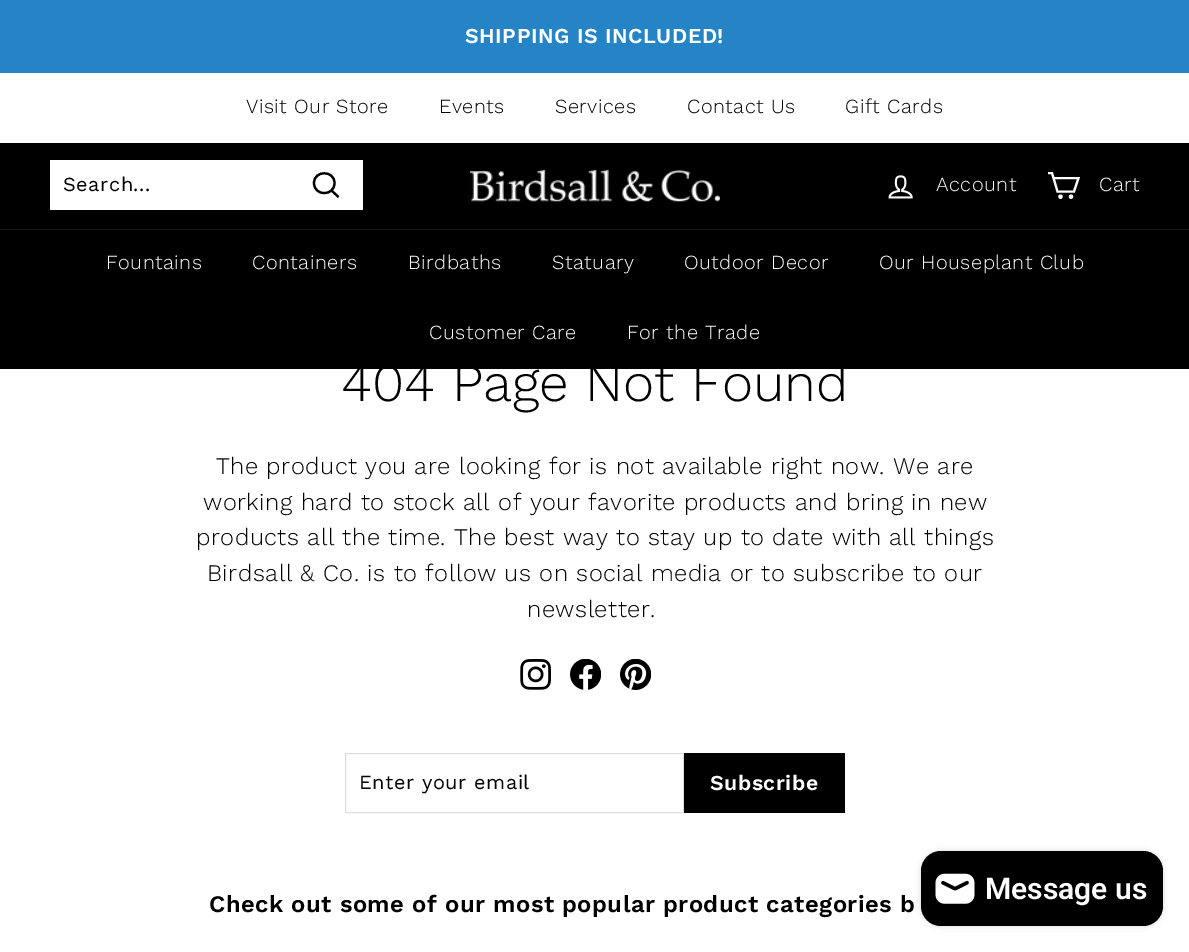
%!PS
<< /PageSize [1189 952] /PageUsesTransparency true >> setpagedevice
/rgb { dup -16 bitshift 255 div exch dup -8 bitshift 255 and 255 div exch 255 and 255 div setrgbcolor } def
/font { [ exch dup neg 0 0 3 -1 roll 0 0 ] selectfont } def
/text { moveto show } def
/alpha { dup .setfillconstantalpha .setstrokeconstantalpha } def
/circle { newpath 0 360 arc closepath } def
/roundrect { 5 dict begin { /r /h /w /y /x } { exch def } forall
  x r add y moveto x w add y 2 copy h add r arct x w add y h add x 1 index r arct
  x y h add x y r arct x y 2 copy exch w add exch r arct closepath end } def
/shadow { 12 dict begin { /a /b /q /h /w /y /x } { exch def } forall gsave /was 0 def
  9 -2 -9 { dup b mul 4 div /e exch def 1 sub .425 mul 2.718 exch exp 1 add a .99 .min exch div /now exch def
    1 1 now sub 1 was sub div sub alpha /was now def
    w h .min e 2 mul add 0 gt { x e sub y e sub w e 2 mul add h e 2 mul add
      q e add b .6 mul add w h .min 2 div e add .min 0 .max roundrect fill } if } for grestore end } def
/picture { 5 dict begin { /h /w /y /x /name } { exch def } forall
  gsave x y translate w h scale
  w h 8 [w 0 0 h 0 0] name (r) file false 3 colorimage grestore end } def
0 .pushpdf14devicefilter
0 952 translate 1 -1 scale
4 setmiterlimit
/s1 { /WorkSans-Light 53.1 font 16#000000 rgb } def
/s2 { /Roboto-SemiBold 30 font 16#FFFFFF rgb } def
16#FFFFFF rgb
0 0 1189 952 rectfill
16#2484C6 rgb
0 0 1189 73 rectfill
/WorkSans-SemiBold 21.25 font
16#FFFFFF rgb
465 43 moveto 0.47 0 (SHIPPING IS INCLUDED!) ashow
/WorkSans-Light 20 font
16#000000 rgb
246 113 moveto 0.47 0 (Visit Our Store) ashow
439 113 moveto 0.47 0 (Events) ashow
555 113 moveto 0.47 0 (Services) ashow
687 113 moveto 0.47 0 (Contact Us) ashow
845 113 moveto 0.47 0 (Gift Cards) ashow
0 143 1189 86 rectfill
16#FFFFFF rgb
50 160 313 50 rectfill
/WorkSans-Regular 20 font
16#000000 rgb
63 191 moveto 0.5 0 (Search...) ashow
2.2 setlinewidth
334.5 183 moveto 334.5 196.5 314 196.5 314 183 curveto 314 170 334.5 170 334.5 183 curveto closepath 338.5 197 moveto 331.5 190.5 lineto stroke
(pic1.raw) 470 169 250 33 picture
(pic2.raw) 888 175 25 24 picture
/WorkSans-Light 20 font
16#FFFFFF rgb
936 191 moveto 0.47 0 (Account) ashow
2.1 setlinewidth
1053.5 178 moveto 1078.5 178 lineto 1074 191.5 lineto 1057.5 191.5 lineto 1052 173 lineto 1048 173 lineto stroke
1060.5 196.7 1.1 circle stroke
1071 196.7 1.1 circle stroke
1099 191 moveto 0.47 0 (Cart) ashow
16#000000 rgb
0 230 1189 139 rectfill
16#1A1A1A rgb
0 229 1189 1 rectfill
16#FFFFFF rgb
106 269 moveto 0.47 0 (Fountains) ashow
252 269 moveto 0.47 0 (Containers) ashow
408 269 moveto 0.47 0 (Birdbaths) ashow
552 269 moveto 0.47 0 (Statuary) ashow
684 269 moveto 0.47 0 (Outdoor Decor) ashow
879 269 moveto 0.47 0 (Our Houseplant Club) ashow
429 339 moveto 0.47 0 (Customer Care) ashow
627 339 moveto 0.47 0 (For the Trade) ashow
s1
(404 Page Not Found) 341 401 text
/WorkSans-Light 23.75 font
216 474 moveto 0.47 0 (The product you are looking for is not available right now. We are) ashow
203 510 moveto 0.47 0 (working hard to stock all of your favorite products and bring in new) ashow
196 545 moveto 0.47 0 (products all the time. The best way to stay up to date with all things) ashow
207 581 moveto 0.47 0 (Birdsall & Co. is to follow us on social media or to subscribe to our) ashow
527 617 moveto 0.47 0 (newsletter.) ashow
(pic3.raw) 520 659 31 31 picture
(pic4.raw) 570 659 31 31 picture
(pic5.raw) 620 659 31 31 picture
16#DDDDDD rgb
1 setlinewidth
345.5 753.5 338 59 rectstroke
/WorkSans-Regular 20 font
16#000000 rgb
359 789 moveto 0.5 0 (Enter your email) ashow
684 753 161 60 rectfill
/WorkSans-SemiBold 21.25 font
16#FFFFFF rgb
710 790 moveto 0.5 0 (Subscribe) ashow
/WorkSans-SemiBold 23.75 font
16#000000 rgb
209 912 moveto 0.47 0 (Check out some of our most popular product categories b) ashow
921 851 242 75 20 3 0.15 shadow
921 851 242 75 20 roundrect fill
(pic6.raw) 935 873 40 31 picture
s2
(Message us) 985 899 text
.poppdf14devicefilter showpage
